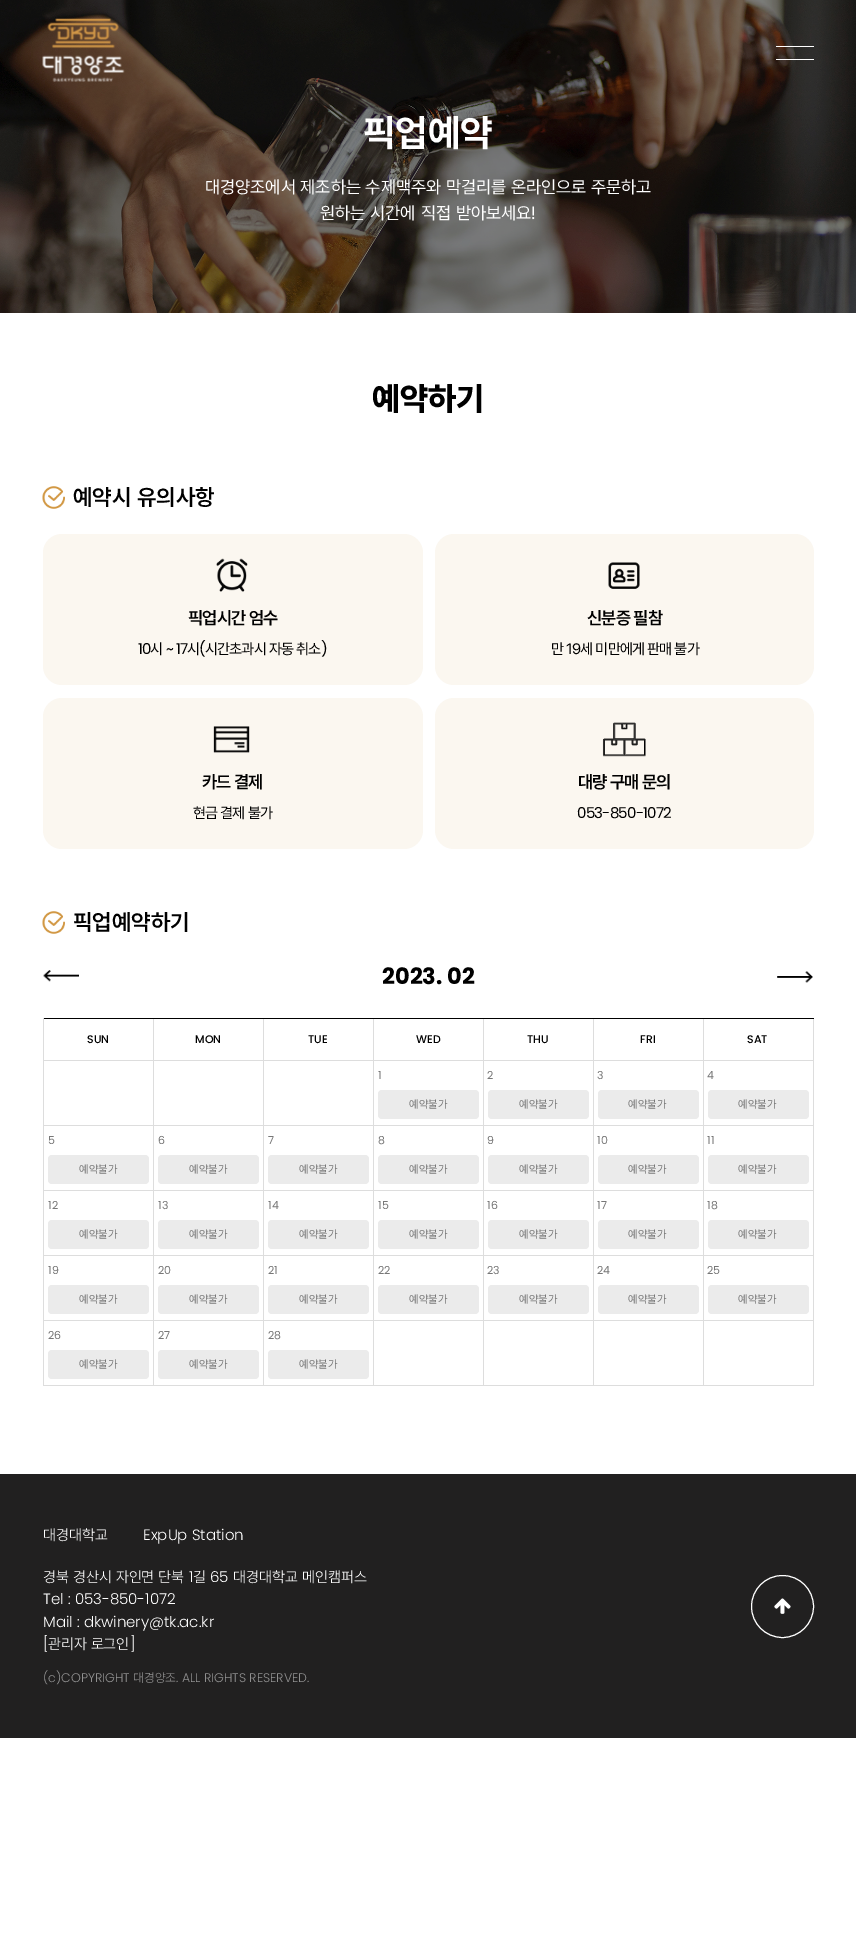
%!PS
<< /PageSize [856 1946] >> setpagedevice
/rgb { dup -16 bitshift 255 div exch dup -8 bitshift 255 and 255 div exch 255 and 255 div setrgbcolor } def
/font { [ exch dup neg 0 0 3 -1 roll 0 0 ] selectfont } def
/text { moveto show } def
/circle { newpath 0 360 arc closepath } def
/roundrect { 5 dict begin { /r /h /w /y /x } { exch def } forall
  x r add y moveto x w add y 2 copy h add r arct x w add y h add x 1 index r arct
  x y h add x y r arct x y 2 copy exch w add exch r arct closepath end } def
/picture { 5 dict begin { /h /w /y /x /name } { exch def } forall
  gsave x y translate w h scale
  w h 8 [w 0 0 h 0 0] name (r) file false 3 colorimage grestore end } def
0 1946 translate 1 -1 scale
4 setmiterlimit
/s1 { /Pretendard-Bold 37.5 font 16#FFFFFF rgb } def
/s2 { /Pretendard-ExtraBold 32.5 font 16#000000 rgb } def
/s3 { /Pretendard-SemiBold 22.5 font 16#000000 rgb } def
/s4 { /Poppins-Bold 22.5 font 16#000000 rgb } def
/s5 { /Poppins-Medium 11 font 16#000000 rgb } def
/s6 { /Poppins-Regular 11 font 16#777777 rgb } def
/s7 { /Pretendard-Regular 11 font 16#777777 rgb } def
/s8 { /Pretendard-Light 15 font 16#FFFFFF rgb } def
/s9 { /Poppins-Light 15 font 16#FFFFFF rgb } def
/s10 { /Poppins-Light 12.5 font 16#909090 rgb } def
/s11 { /Pretendard-Light 12.5 font 16#909090 rgb } def
16#FFFFFF rgb
0 0 856 1946 rectfill
(pic2.raw) 0 0 856 313 picture
(pic1.raw) 42 18 83 64 picture
776 46 38 1 rectfill
776 59 38 1 rectfill
s1
(픽업예약) 363 146 text
/Pretendard-Regular 17.5 font
205 193 moveto 0.25 0 32 (대경양조에서 제조하는 수제맥주와 막걸리를 온라인으로 주문하고) widthshow
320 219 moveto 0.5 0 32 (원하는 시간에 직접 받아보세요!) widthshow
s2
(예약하기) 372 410 text
(pic3.raw) 42 486 23 23 picture
s3
(예약시 유의사항) 73 505 text
16#FBF7F0 rgb
43 534 380 151 19 roundrect fill
(pic4.raw) 216 558 32 34 picture
/Pretendard-SemiBold 17.5 font
16#000000 rgb
188 624 moveto -0.8 0 (픽업시간 엄수) ashow
/Poppins-Regular 15 font
138 654 moveto -0.8 0 (10) ashow
/Pretendard-Regular 15 font
150 654 moveto -0.8 0 (시) ashow
/Poppins-Regular 15 font
166 654 moveto -0.8 0 (~ 17) ashow
/Pretendard-Regular 15 font
187 654 moveto -0.8 0 (시) ashow
/Poppins-Regular 15 font
199 654 moveto -0.8 0 (\() ashow
/Pretendard-Regular 15 font
205 654 moveto -0.8 0 (시간초과시 자동 취소) ashow
/Poppins-Regular 15 font
321 654 moveto -0.8 0 (\)) ashow
16#FBF7F0 rgb
435 534 379 151 19 roundrect fill
(pic5.raw) 608 562 32 27 picture
/Pretendard-SemiBold 17.5 font
16#000000 rgb
587 624 moveto -0.8 0 (신분증 필참) ashow
/Pretendard-Regular 15 font
551 654 moveto -0.8 0 (만 19세 미만에게 판매 불가) ashow
16#FBF7F0 rgb
43 698 380 151 19 roundrect fill
(pic6.raw) 213 726 37 27 picture
/Pretendard-SemiBold 17.5 font
16#000000 rgb
202 788 moveto -0.8 0 (카드 결제) ashow
/Pretendard-Regular 15 font
193 818 moveto -0.8 0 (현금 결제 불가) ashow
16#FBF7F0 rgb
435 698 379 151 19 roundrect fill
(pic7.raw) 602 722 44 35 picture
/Pretendard-SemiBold 17.5 font
16#000000 rgb
578 788 moveto -0.8 0 (대량 구매 문의) ashow
/Poppins-Regular 15 font
577 818 moveto -0.8 0 (053-850-1072) ashow
(pic3.raw) 42 911 23 23 picture
s3
(픽업예약하기) 73 930 text
(pic8.raw) 43 970 36 12 picture
s4
(2023. 02) 382 984 text
(pic9.raw) 777 971 36 12 picture
43 1018 771 1 rectfill
16#DDDDDD rgb
43 1018 1 368 rectfill
153 1019 1 367 rectfill
44 1060 110 1 rectfill
s5
(SUN) 87 1043 text
16#DDDDDD rgb
263 1019 1 367 rectfill
154 1060 110 1 rectfill
s5
(MON) 195 1043 text
16#DDDDDD rgb
373 1019 1 367 rectfill
264 1060 110 1 rectfill
s5
(TUE) 308 1043 text
16#DDDDDD rgb
483 1019 1 367 rectfill
374 1060 110 1 rectfill
s5
(WED) 416 1043 text
16#DDDDDD rgb
593 1019 1 367 rectfill
484 1060 110 1 rectfill
s5
(THU) 527 1043 text
16#DDDDDD rgb
703 1019 1 367 rectfill
594 1060 110 1 rectfill
s5
(FRI) 640 1043 text
16#DDDDDD rgb
813 1019 1 367 rectfill
704 1060 110 1 rectfill
s5
(SAT) 747 1043 text
s6
(1) 378 1079 text
16#EBEBEB rgb
378 1090 101 29 4 roundrect fill
s7
(예약불가) 409 1108 text
s6
(2) 487 1079 text
16#EBEBEB rgb
488 1090 101 29 4 roundrect fill
s7
(예약불가) 519 1108 text
s6
(3) 597 1079 text
16#EBEBEB rgb
598 1090 101 29 4 roundrect fill
s7
(예약불가) 628 1108 text
s6
(4) 707 1079 text
16#EBEBEB rgb
708 1090 101 29 4 roundrect fill
s7
(예약불가) 738 1108 text
16#DDDDDD rgb
44 1125 770 1 rectfill
44 1190 770 1 rectfill
s6
(5) 48 1144 text
16#EBEBEB rgb
48 1155 101 29 4 roundrect fill
s7
(예약불가) 79 1173 text
s6
(6) 158 1144 text
16#EBEBEB rgb
158 1155 101 29 4 roundrect fill
s7
(예약불가) 189 1173 text
s6
(7) 268 1144 text
16#EBEBEB rgb
268 1155 101 29 4 roundrect fill
s7
(예약불가) 299 1173 text
s6
(8) 378 1144 text
16#EBEBEB rgb
378 1155 101 29 4 roundrect fill
s7
(예약불가) 409 1173 text
s6
(9) 487 1144 text
16#EBEBEB rgb
488 1155 101 29 4 roundrect fill
s7
(예약불가) 519 1173 text
s6
(10) 597 1144 text
16#EBEBEB rgb
598 1155 101 29 4 roundrect fill
s7
(예약불가) 628 1173 text
s6
(11) 707 1144 text
16#EBEBEB rgb
708 1155 101 29 4 roundrect fill
s7
(예약불가) 738 1173 text
16#DDDDDD rgb
44 1255 770 1 rectfill
s6
(12) 48 1209 text
16#EBEBEB rgb
48 1220 101 29 4 roundrect fill
s7
(예약불가) 79 1238 text
s6
(13) 158 1209 text
16#EBEBEB rgb
158 1220 101 29 4 roundrect fill
s7
(예약불가) 189 1238 text
s6
(14) 268 1209 text
16#EBEBEB rgb
268 1220 101 29 4 roundrect fill
s7
(예약불가) 299 1238 text
s6
(15) 378 1209 text
16#EBEBEB rgb
378 1220 101 29 4 roundrect fill
s7
(예약불가) 409 1238 text
s6
(16) 487 1209 text
16#EBEBEB rgb
488 1220 101 29 4 roundrect fill
s7
(예약불가) 519 1238 text
s6
(17) 597 1209 text
16#EBEBEB rgb
598 1220 101 29 4 roundrect fill
s7
(예약불가) 628 1238 text
s6
(18) 707 1209 text
16#EBEBEB rgb
708 1220 101 29 4 roundrect fill
s7
(예약불가) 738 1238 text
16#DDDDDD rgb
44 1320 770 1 rectfill
s6
(19) 48 1274 text
16#EBEBEB rgb
48 1285 101 29 4 roundrect fill
s7
(예약불가) 79 1303 text
s6
(20) 158 1274 text
16#EBEBEB rgb
158 1285 101 29 4 roundrect fill
s7
(예약불가) 189 1303 text
s6
(21) 268 1274 text
16#EBEBEB rgb
268 1285 101 29 4 roundrect fill
s7
(예약불가) 299 1303 text
s6
(22) 378 1274 text
16#EBEBEB rgb
378 1285 101 29 4 roundrect fill
s7
(예약불가) 409 1303 text
s6
(23) 487 1274 text
16#EBEBEB rgb
488 1285 101 29 4 roundrect fill
s7
(예약불가) 519 1303 text
s6
(24) 597 1274 text
16#EBEBEB rgb
598 1285 101 29 4 roundrect fill
s7
(예약불가) 628 1303 text
s6
(25) 707 1274 text
16#EBEBEB rgb
708 1285 101 29 4 roundrect fill
s7
(예약불가) 738 1303 text
16#DDDDDD rgb
44 1385 770 1 rectfill
s6
(26) 48 1339 text
16#EBEBEB rgb
48 1350 101 29 4 roundrect fill
s7
(예약불가) 79 1368 text
s6
(27) 158 1339 text
16#EBEBEB rgb
158 1350 101 29 4 roundrect fill
s7
(예약불가) 189 1368 text
s6
(28) 268 1339 text
16#EBEBEB rgb
268 1350 101 29 4 roundrect fill
s7
(예약불가) 299 1368 text
16#212020 rgb
0 1474 856 264 rectfill
s8
(대경대학교) 43 1540 text
s9
(ExpUp Station) 143 1540 text
/Pretendard-Light 15 font
43 1582 moveto 0.25 0 32 (경북 경산시 자인면 단북) widthshow
s9
(1) 189 1582 text
s8
(길) 193 1582 text
s9
(65) 210 1582 text
/Pretendard-Light 15 font
233 1582 moveto 0.25 0 32 (대경대학교 메인캠퍼스) widthshow
s9
(Tel : 053-850-1072) 43 1604 text
(Mail : dkwinery@tk.ac.kr) 43 1627 text
([) 43 1649 text
s8
(관리자 로그인) 48 1649 text
s9
(]) 130 1649 text
s10
(\(c\)COPYRIGHT) 43 1682 text
s11
(대경양조) 133 1682 text
s10
(. ALL RIGHTS RESERVED.) 176 1682 text
16#FFFFFF rgb
782.5 1606.5 31 circle stroke
(pic10.raw) 774 1598 17 16 picture
showpage
